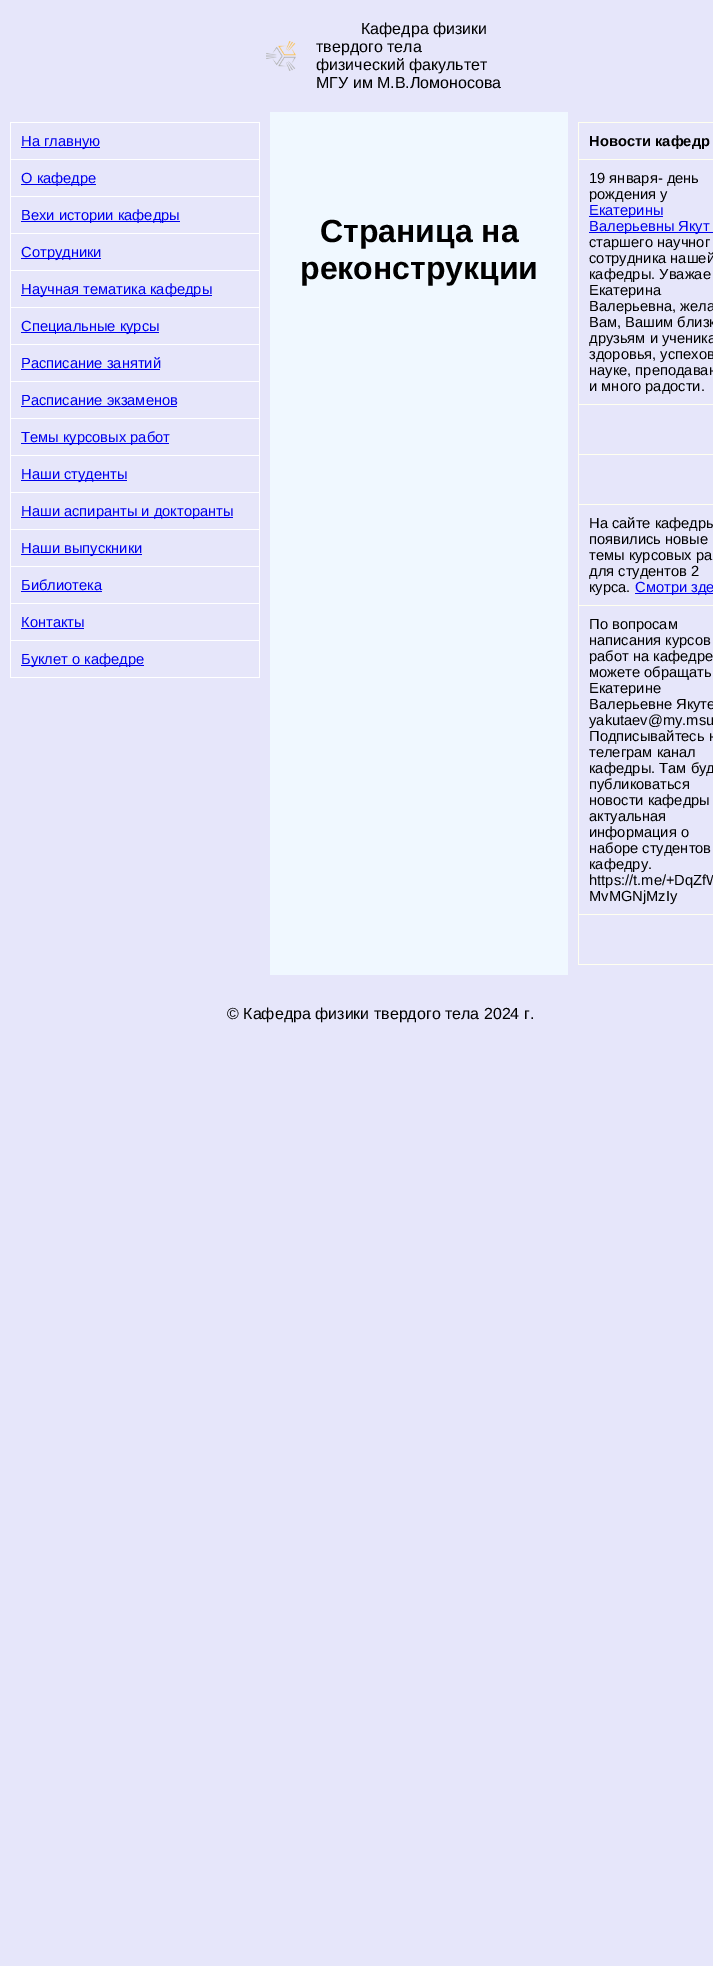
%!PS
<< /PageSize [713 1966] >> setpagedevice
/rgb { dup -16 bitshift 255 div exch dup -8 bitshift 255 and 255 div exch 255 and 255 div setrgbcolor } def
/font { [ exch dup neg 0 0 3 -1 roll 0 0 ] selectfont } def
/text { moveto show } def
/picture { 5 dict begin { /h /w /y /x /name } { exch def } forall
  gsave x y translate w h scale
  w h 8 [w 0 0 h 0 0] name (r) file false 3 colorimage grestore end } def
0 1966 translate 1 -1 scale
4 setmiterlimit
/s1 { /LiberationSans-Regular 16 font 16#000000 rgb } def
/s2 { /LiberationSans-Regular 14.7 font 16#0000EE rgb } def
/s3 { /LiberationSans-Bold 14.7 font 16#000000 rgb } def
/s4 { /LiberationSans-Regular 14.7 font 16#000000 rgb } def
/s5 { /LiberationSans-Bold 32 font 16#000000 rgb } def
16#E6E6FA rgb
0 0 713 1966 rectfill
(pic1.raw) 266 41 30 30 picture
s1
(Кафедра физики) 361 34 text
(твердого тела) 316 52 text
(физический факультет) 316 70 text
(МГУ им М.В.Ломоносова) 316 88 text
16#FFFFFF rgb
10 122 250 1 rectfill
259 122 1 556 rectfill
10 677 250 1 rectfill
10 122 1 556 rectfill
16#0000EE rgb
21 147 79 1 rectfill
s2
(На главную) 21 146 text
16#FFFFFF rgb
10 159 250 1 rectfill
16#0000EE rgb
21 184 75 1 rectfill
(О кафедре) 21 183 text
16#FFFFFF rgb
10 196 250 1 rectfill
16#0000EE rgb
21 221 159 1 rectfill
(Вехи истории кафедры) 21 220 text
16#FFFFFF rgb
10 233 250 1 rectfill
16#0000EE rgb
21 258 80 1 rectfill
(Сотрудники) 21 257 text
16#FFFFFF rgb
10 270 250 1 rectfill
16#0000EE rgb
21 295 191 1 rectfill
(Научная тематика кафедры) 21 294 text
16#FFFFFF rgb
10 307 250 1 rectfill
16#0000EE rgb
21 332 138 1 rectfill
(Специальные курсы) 21 331 text
16#FFFFFF rgb
10 344 250 1 rectfill
s2
(Расписание занятий) 21 368 text
21 369 139 1 rectfill
16#FFFFFF rgb
10 381 250 1 rectfill
s2
(Расписание экзаменов) 21 405 text
21 406 156 1 rectfill
16#FFFFFF rgb
10 418 250 1 rectfill
16#0000EE rgb
21 443 148 1 rectfill
(Темы курсовых работ) 21 442 text
16#FFFFFF rgb
10 455 250 1 rectfill
16#0000EE rgb
21 480 106 1 rectfill
(Наши студенты) 21 479 text
16#FFFFFF rgb
10 492 250 1 rectfill
16#0000EE rgb
21 517 212 1 rectfill
(Наши аспиранты и докторанты) 21 516 text
16#FFFFFF rgb
10 529 250 1 rectfill
16#0000EE rgb
21 554 121 1 rectfill
(Наши выпускники) 21 553 text
16#FFFFFF rgb
10 566 250 1 rectfill
s2
(Библиотека) 21 590 text
21 591 81 1 rectfill
16#FFFFFF rgb
10 603 250 1 rectfill
s2
(Контакты) 21 627 text
21 628 63 1 rectfill
16#FFFFFF rgb
10 640 250 1 rectfill
16#0000EE rgb
21 665 123 1 rectfill
(Буклет о кафедре) 21 664 text
16#F0F8FF rgb
270 112 298 863 rectfill
16#FFFFF0 rgb
578 122 135 1 rectfill
578 964 135 1 rectfill
578 122 1 843 rectfill
s3
(Новости кафедр) 589 146 text
16#FFFFF0 rgb
578 159 135 1 rectfill
s4
(19 января- день) 589 183 text
(рождения у) 589 199 text
16#0000EE rgb
589 216 74 1 rectfill
(Екатерины) 589 215 text
589 232 124 1 rectfill
(Валерьевны Якут) 589 231 text
s4
(старшего научног) 589 247 text
(сотрудника нашей) 589 263 text
(кафедры. Уважае) 589 279 text
(Екатерина) 589 295 text
(Валерьевна, жела) 589 311 text
(Вам, Вашим близк) 589 327 text
(друзьям и ученика) 589 343 text
(здоровья, успехов) 589 359 text
(науке, преподаван) 589 375 text
(и много радости.) 589 391 text
16#FFFFF0 rgb
578 404 135 1 rectfill
578 454 135 1 rectfill
578 504 135 1 rectfill
s4
(На сайте кафедры) 589 528 text
(появились новые) 589 544 text
(темы курсовых ра) 589 560 text
(для студентов 2) 589 576 text
(курса.) 589 592 text
16#0000EE rgb
635 593 78 1 rectfill
(Смотри зде) 635 592 text
16#FFFFF0 rgb
578 605 135 1 rectfill
s4
(По вопросам) 589 629 text
(написания курсов) 589 645 text
(работ на кафедре) 589 661 text
(можете обращать) 589 677 text
(Екатерине) 589 693 text
(Валерьевне Якуте) 589 709 text
(yakutaev@my.msu) 589 725 text
(Подписывайтесь н) 589 741 text
(телеграм канал) 589 757 text
(кафедры. Там буд) 589 773 text
(публиковаться) 589 789 text
(новости кафедры) 589 805 text
(актуальная) 589 821 text
(информация о) 589 837 text
(наборе студентов) 589 853 text
(кафедру.) 589 869 text
(https://t.me/+DqZfW) 589 885 text
(MvMGNjMzIy) 589 901 text
16#FFFFF0 rgb
578 914 135 1 rectfill
s5
(Страница на) 320 242 text
(реконструкции) 300 279 text
s1
(© Кафедра физики твердого тела 2024 г.) 227 1019 text
showpage
